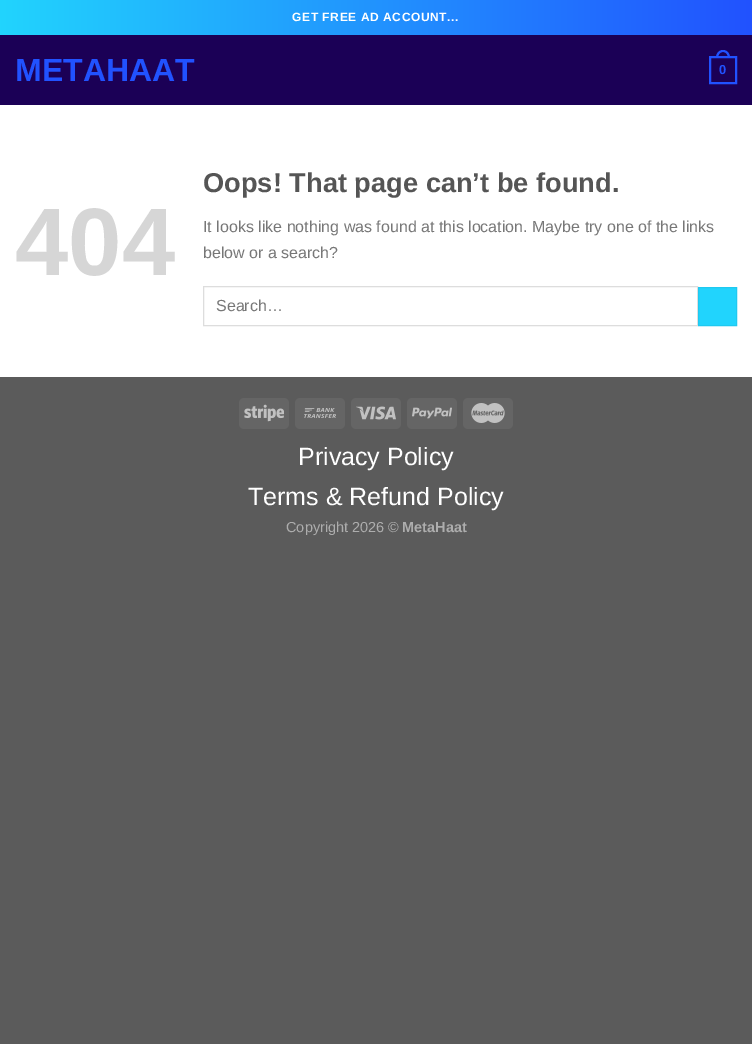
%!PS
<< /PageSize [752 1044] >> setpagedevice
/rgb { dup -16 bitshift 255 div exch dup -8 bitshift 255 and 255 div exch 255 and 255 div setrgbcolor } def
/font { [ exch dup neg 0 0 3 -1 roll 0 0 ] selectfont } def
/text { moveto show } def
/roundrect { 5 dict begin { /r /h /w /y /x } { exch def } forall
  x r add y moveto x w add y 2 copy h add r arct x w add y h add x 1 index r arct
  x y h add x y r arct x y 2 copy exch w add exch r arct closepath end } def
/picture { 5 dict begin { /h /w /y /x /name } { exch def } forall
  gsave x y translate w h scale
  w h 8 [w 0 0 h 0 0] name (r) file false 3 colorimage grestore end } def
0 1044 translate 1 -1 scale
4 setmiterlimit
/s1 { /LiberationSans-Bold 32 font 16#2152FF rgb } def
/s2 { /LiberationSans-Bold 13 font 16#2152FF rgb } def
/s3 { /LiberationSans-Bold 96 font 16#D6D6D6 rgb } def
/s4 { /LiberationSans-Bold 27.25 font 16#555555 rgb } def
/s5 { /LiberationSans-Regular 16 font 16#777777 rgb } def
/s6 { /LiberationSans-Regular 25 font 16#FFFFFF rgb } def
/s7 { /LiberationSans-Regular 14.5 font 16#ADADAD rgb } def
/s8 { /LiberationSans-Bold 14.5 font 16#ADADAD rgb } def
16#5B5B5B rgb
0 0 752 1044 rectfill
16#FFFFFF rgb
0 105 752 272 rectfill
gsave 0 0 moveto 752 0 lineto 752 35 lineto 0 35 lineto closepath clip newpath
<< /ShadingType 2 /ColorSpace /DeviceRGB /Coords [0 18 752 17] /Extend [true true] /Function << /FunctionType 2 /Domain [0 1] /C0 [0.129 0.831 0.992] /C1 [0.129 0.322 1] /N 1 >> >> shfill grestore
/LiberationSans-Bold 12 font
292 21 moveto 0.6 0 (GET FREE AD ACCOUNT...) ashow
16#1B0056 rgb
0 35 752 70 rectfill
s1
(METAHAAT) 15 81 text
2 setlinewidth
710 57 26 26 rectstroke
723 50 moveto 727.5 50 730 54 730 58 curveto 716 58 lineto 716 54 718.5 50 723 50 curveto closepath 723 52 moveto 726.5 52 728 55 728 58 curveto 718 58 lineto 718 55 719.5 52 723 52 curveto closepath eofill
s2
(0) 719 74 text
s3
(404) 15 275 text
s4
(Oops! That page can’t be found.) 203 192 text
s5
(It looks like nothing was found at this location. Maybe try one of the links) 203 232 text
(below or a search?) 203 258 text
16#DDDDDD rgb
1 setlinewidth
203.5 286.5 494 39 rectstroke
s5
(Search…) 216 311 text
16#21D4FD rgb
698.5 287.5 moveto 736.5 287.5 lineto 736.5 325.5 lineto 698.5 325.5 lineto closepath gsave fill grestore
16#1FC9F0 rgb
stroke
16#656565 rgb
239 398 50 31 5 roundrect fill
(pic1.raw) 244 404 40 18 picture
295 398 50 31 5 roundrect fill
(pic2.raw) 304 408 32 10 picture
351 398 50 31 5 roundrect fill
(pic3.raw) 356 406 40 14 picture
407 398 50 31 5 roundrect fill
(pic4.raw) 412 407 40 12 picture
463 398 50 31 5 roundrect fill
(pic5.raw) 471 403 34 20 picture
s6
(Privacy Policy) 298 465 text
(Terms & Refund Policy) 248 505 text
s7
(Copyright 2026 ©) 286 532 text
s8
(MetaHaat) 402 532 text
showpage
